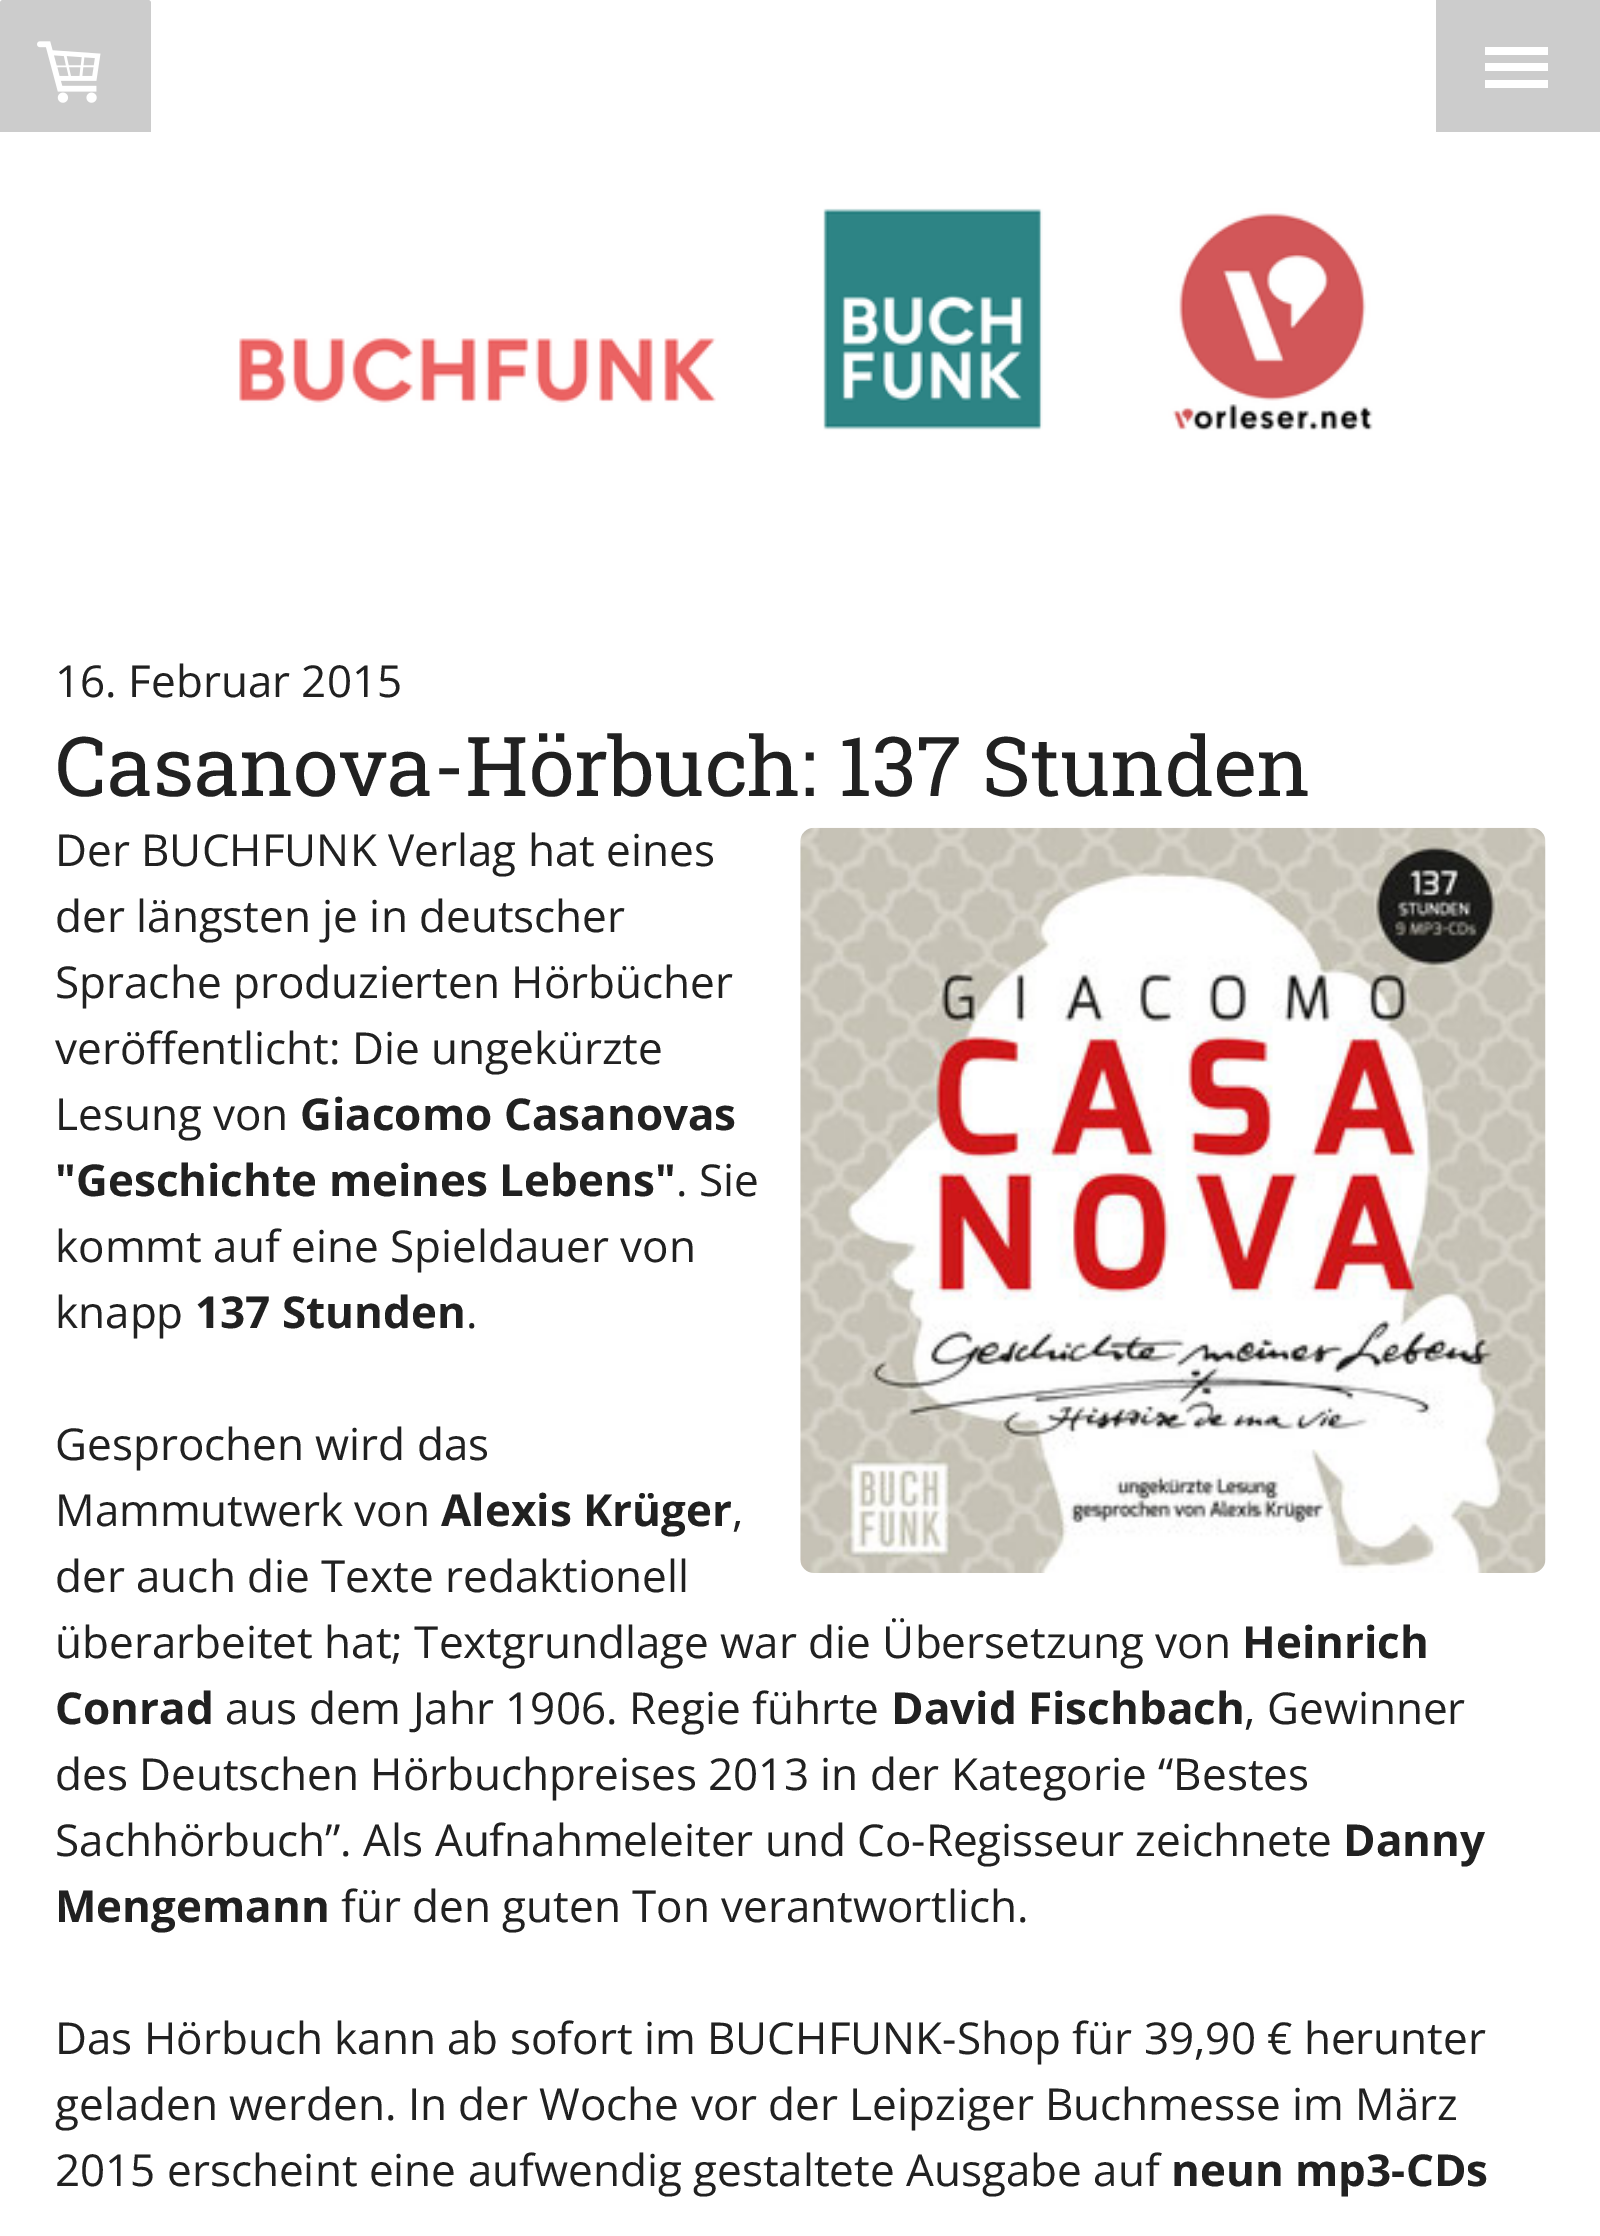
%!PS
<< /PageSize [1600 2236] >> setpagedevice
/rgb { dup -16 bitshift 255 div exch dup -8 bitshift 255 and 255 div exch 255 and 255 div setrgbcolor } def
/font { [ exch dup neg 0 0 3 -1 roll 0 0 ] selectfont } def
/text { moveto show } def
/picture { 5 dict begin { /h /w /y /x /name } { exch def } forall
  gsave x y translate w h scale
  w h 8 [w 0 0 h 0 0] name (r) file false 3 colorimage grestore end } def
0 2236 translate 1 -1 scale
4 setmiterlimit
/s1 { /OpenSans-Regular 44 font 16#212121 rgb } def
/s2 { /RobotoSlab-Regular 82.5 font 16#212121 rgb } def
/s3 { /OpenSans-Bold 44 font 16#212121 rgb } def
16#FFFFFF rgb
0 0 1600 2236 rectfill
16#CCCCCC rgb
3 0 moveto 148 0 lineto 149.5 0 151 1.5 151 3 curveto 151 132 lineto 0 132 lineto 0 3 lineto 0 1.5 1.5 0 3 0 curveto closepath fill
(pic1.raw) 37 41 64 62 picture
1436 0 164 132 rectfill
16#FFFFFF rgb
1485 63 63 8 rectfill
1485 47 63 8 rectfill
1485 80 63 8 rectfill
(pic2.raw) 239 208 1134 223 picture
s1
(16. Februar 2015) 55 697 text
s2
(Casanova-Hörbuch: 137 Stunden) 55 796 text
(pic3.raw) 800 827 746 746 picture
s1
(Der BUCHFUNK Verlag hat eines) 55 866 text
(der längsten je in deutscher) 55 932 text
(Sprache produzierten Hörbücher) 55 998 text
(veröffentlicht: Die ungekürzte) 55 1064 text
(Lesung von) 55 1130 text
s3
(Giacomo Casanovas) 300 1130 text
("Geschichte meines Lebens") 55 1196 text
s1
(. Sie) 676 1196 text
(kommt auf eine Spieldauer von) 55 1262 text
(knapp) 55 1328 text
s3
(137 Stunden) 195 1328 text
s1
(.) 466 1328 text
(Gesprochen wird das) 55 1460 text
(Mammutwerk von) 55 1526 text
s3
(Alexis Krüger) 441 1526 text
s1
(,) 732 1526 text
(der auch die Texte redaktionell) 55 1592 text
(überarbeitet hat; Textgrundlage war die Übersetzung von) 55 1658 text
s3
(Heinrich) 1242 1658 text
(Conrad) 55 1724 text
s1
(aus dem Jahr 1906. Regie führte) 225 1724 text
s3
(David Fischbach) 891 1724 text
s1
(, Gewinner) 1244 1724 text
(des Deutschen Hörbuchpreises 2013 in der Kategorie “Bestes) 55 1790 text
(Sachhörbuch”. Als Aufnahmeleiter und Co-Regisseur zeichnete) 55 1856 text
s3
(Danny) 1343 1856 text
(Mengemann) 55 1922 text
s1
(für den guten Ton verantwortlich.) 341 1922 text
(Das Hörbuch kann ab sofort im BUCHFUNK-Shop für 39,90 € herunter) 55 2054 text
(geladen werden. In der Woche vor der Leipziger Buchmesse im März) 55 2120 text
(2015 erscheint eine aufwendig gestaltete Ausgabe auf) 55 2186 text
s3
(neun mp3-CDs) 1171 2186 text
showpage
